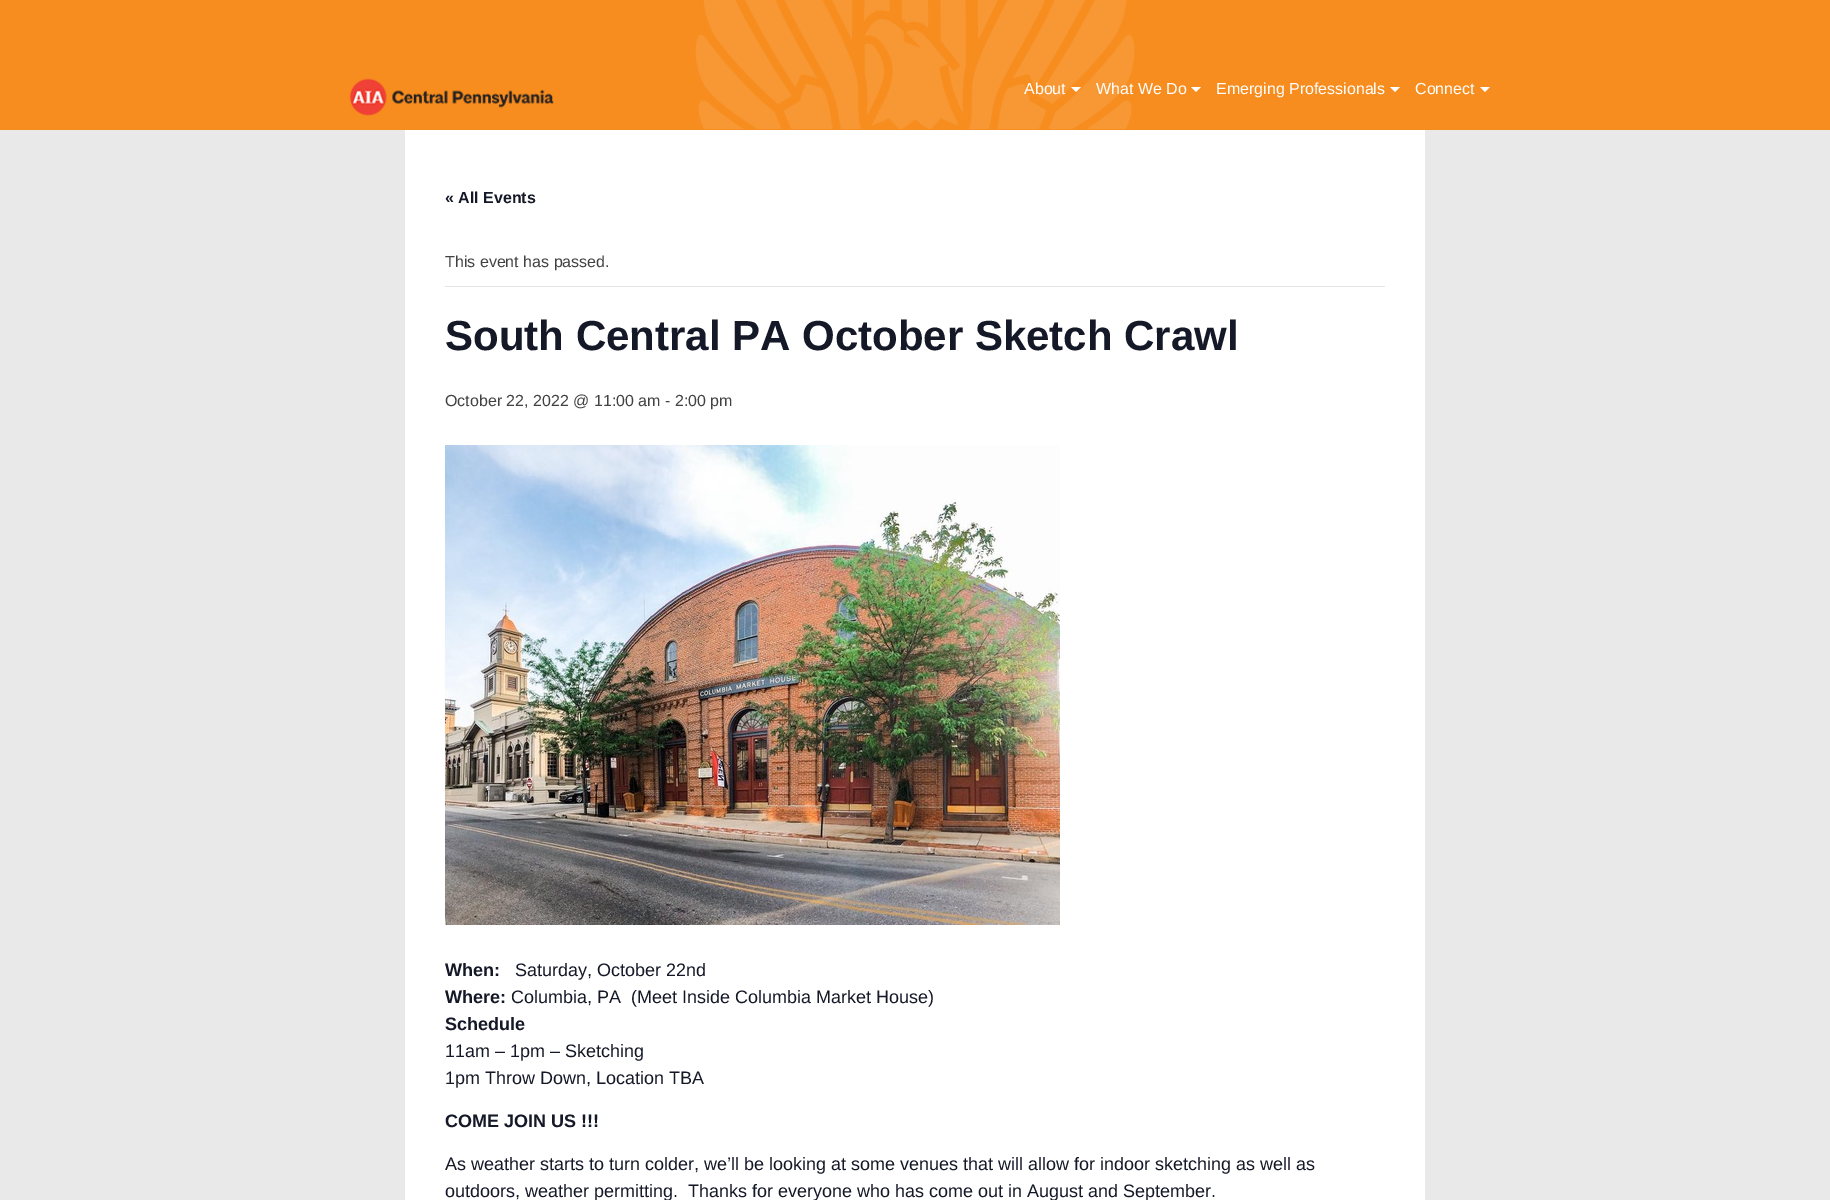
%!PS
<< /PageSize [1830 1200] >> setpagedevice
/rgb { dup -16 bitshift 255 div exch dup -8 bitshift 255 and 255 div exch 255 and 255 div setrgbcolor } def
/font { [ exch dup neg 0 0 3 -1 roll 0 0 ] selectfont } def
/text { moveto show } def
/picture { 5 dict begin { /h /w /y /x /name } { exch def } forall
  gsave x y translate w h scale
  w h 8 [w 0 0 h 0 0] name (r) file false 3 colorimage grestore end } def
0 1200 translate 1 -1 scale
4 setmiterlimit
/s1 { /LiberationSans-Regular 16 font 16#FFFFFF rgb } def
/s2 { /LiberationSans-Bold 16 font 16#141827 rgb } def
/s3 { /LiberationSans-Regular 16 font 16#424242 rgb } def
/s4 { /LiberationSans-Bold 42 font 16#141827 rgb } def
/s5 { /LiberationSans-Bold 18 font 16#141827 rgb } def
/s6 { /LiberationSans-Regular 18 font 16#141827 rgb } def
16#E9E9E9 rgb
0 0 1830 1200 rectfill
16#F78D1E rgb
0 0 1830 130 rectfill
(pic1.raw) 695 0 440 129 picture
(pic2.raw) 349 78 205 38 picture
s1
(About) 1024 94 text
1071 87 moveto 1081 87 lineto 1076 92 lineto closepath fill
(What We Do) 1096 94 text
1191 87 moveto 1201 87 lineto 1196 92 lineto closepath fill
(Emerging Professionals) 1216 94 text
1390 87 moveto 1400 87 lineto 1395 92 lineto closepath fill
(Connect) 1415 94 text
1480 87 moveto 1490 87 lineto 1485 92 lineto closepath fill
405 130 1020 1070 rectfill
s2
(« All Events) 445 203 text
16#E4E4E4 rgb
445 286 940 1 rectfill
s3
(This event has passed.) 445 267 text
s4
(South Central PA October Sketch Crawl) 445 350 text
s3
(October 22, 2022 @ 11:00 am - 2:00 pm) 445 406 text
(pic3.raw) 445 445 615 480 picture
s5
(When:) 445 976 text
s6
(Saturday, October 22nd) 515 976 text
s5
(Where:) 445 1003 text
s6
(Columbia, PA  \(Meet Inside Columbia Market House\)) 511 1003 text
s5
(Schedule) 445 1030 text
s6
(11am – 1pm – Sketching) 445 1057 text
(1pm Throw Down, Location TBA) 445 1084 text
s5
(COME JOIN US !!!) 445 1127 text
s6
(As weather starts to turn colder, we’ll be looking at some venues that will allow for indoor sketching as well as) 445 1170 text
(outdoors, weather permitting.  Thanks for everyone who has come out in August and September.) 445 1197 text
showpage
